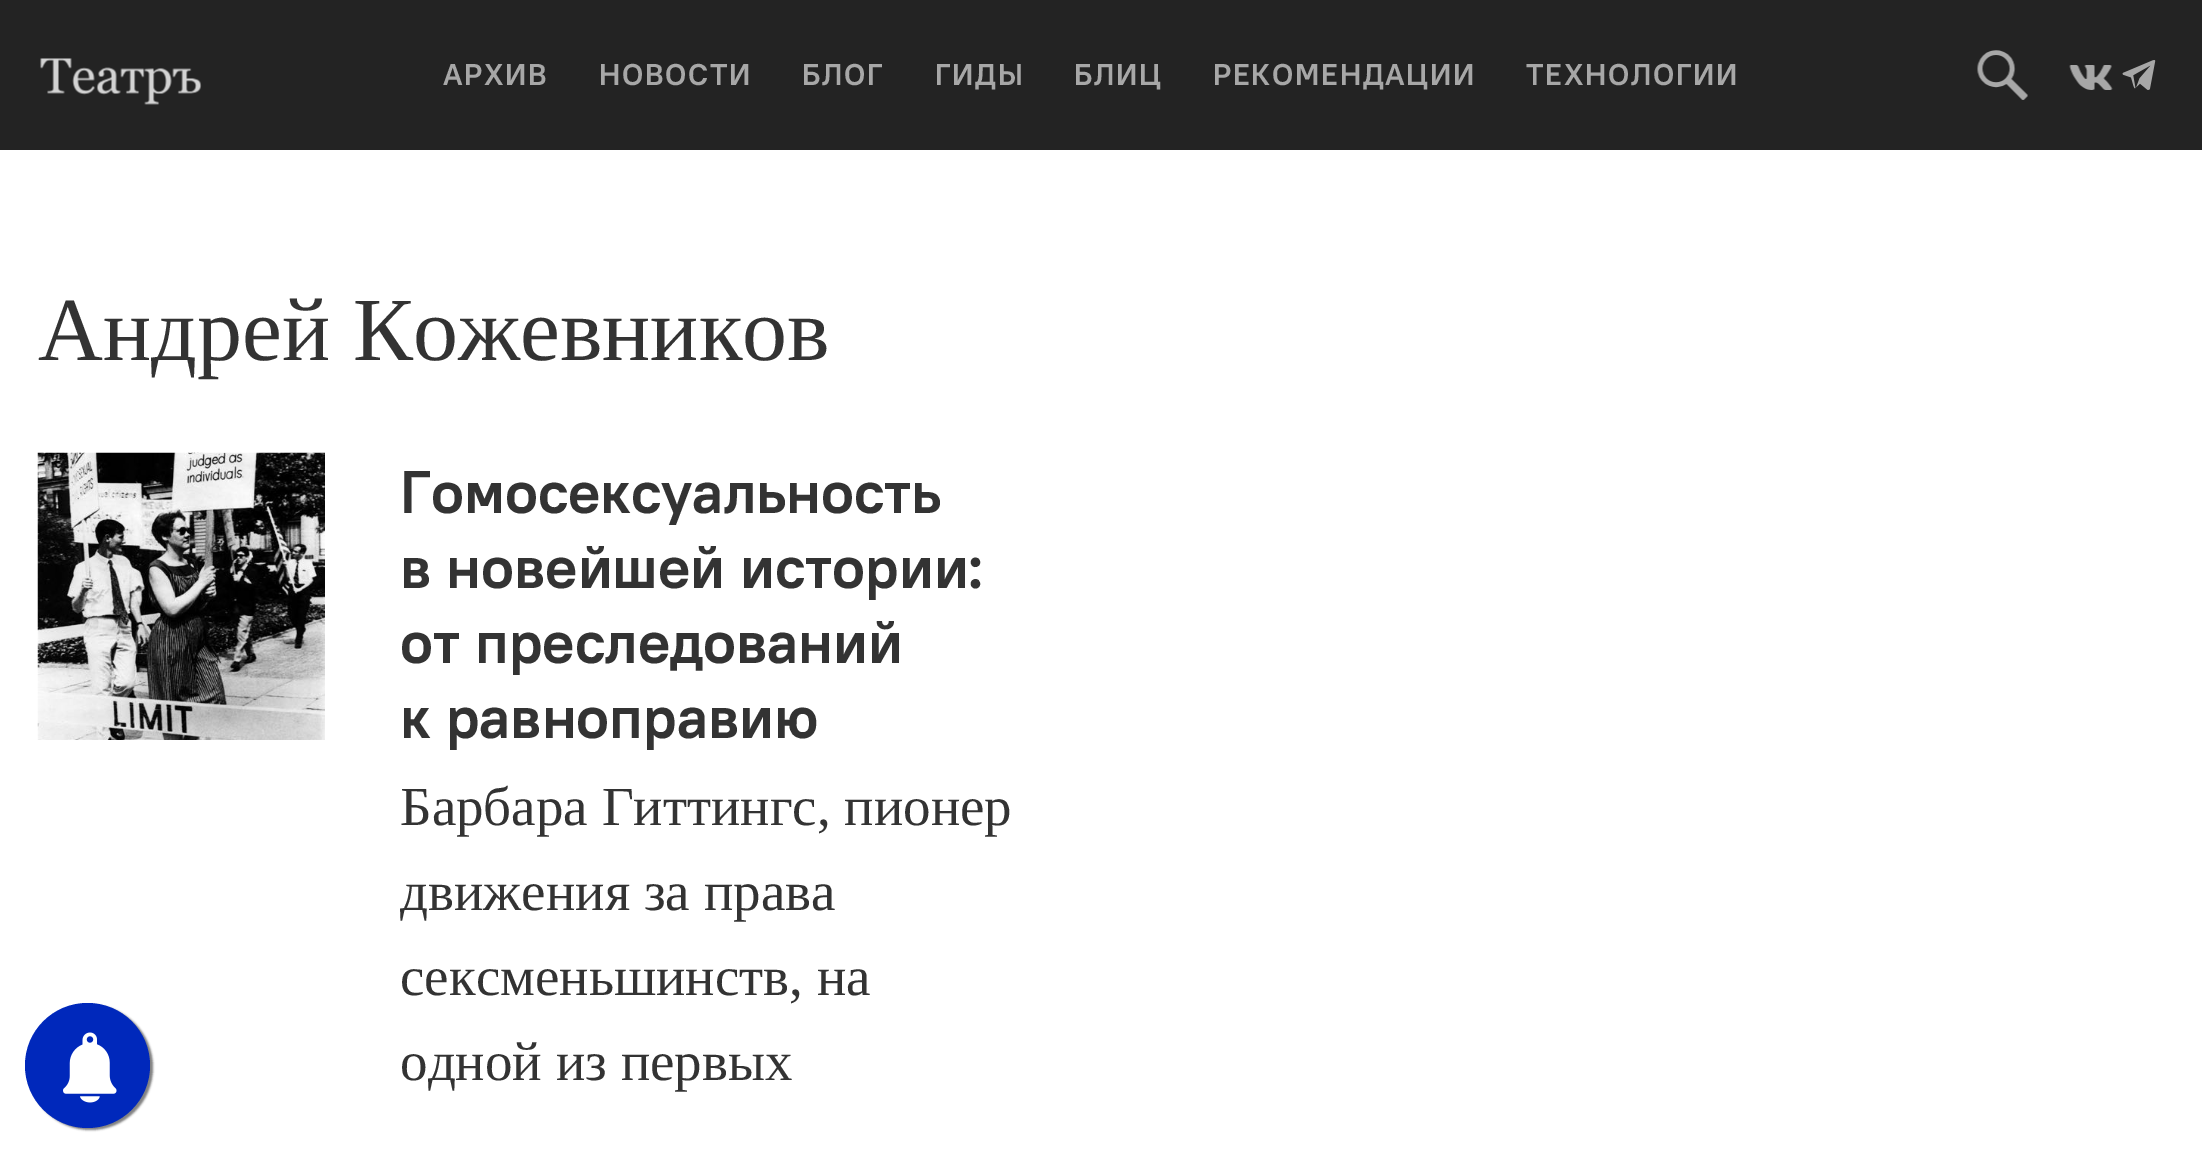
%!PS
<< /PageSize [2202 1151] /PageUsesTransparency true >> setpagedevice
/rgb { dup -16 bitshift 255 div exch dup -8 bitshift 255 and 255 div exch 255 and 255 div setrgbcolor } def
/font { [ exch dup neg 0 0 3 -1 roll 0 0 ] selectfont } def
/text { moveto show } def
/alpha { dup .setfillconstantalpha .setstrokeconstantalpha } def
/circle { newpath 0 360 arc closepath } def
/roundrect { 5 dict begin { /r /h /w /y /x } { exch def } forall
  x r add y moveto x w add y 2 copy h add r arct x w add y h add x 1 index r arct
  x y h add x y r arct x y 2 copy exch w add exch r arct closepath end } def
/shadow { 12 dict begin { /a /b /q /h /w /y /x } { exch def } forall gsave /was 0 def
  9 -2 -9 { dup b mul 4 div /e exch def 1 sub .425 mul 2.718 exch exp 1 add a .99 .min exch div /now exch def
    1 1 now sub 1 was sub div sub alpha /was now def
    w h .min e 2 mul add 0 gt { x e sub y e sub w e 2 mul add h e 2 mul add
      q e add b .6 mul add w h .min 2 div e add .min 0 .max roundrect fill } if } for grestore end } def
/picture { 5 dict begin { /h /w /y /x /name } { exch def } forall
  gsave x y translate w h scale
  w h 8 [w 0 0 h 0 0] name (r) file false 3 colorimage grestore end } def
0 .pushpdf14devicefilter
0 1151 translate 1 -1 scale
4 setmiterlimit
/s1 { /LiberationSerif-Regular 90 font 16#333333 rgb } def
/s2 { /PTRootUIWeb-Bold 60 font 16#333333 rgb } def
/s3 { /LiberationSerif-Regular 55 font 16#333333 rgb } def
16#FFFFFF rgb
0 0 2202 1151 rectfill
16#232323 rgb
0 0 2202 150 rectfill
(pic1.raw) 40 58 162 47 picture
/PTRootUIWeb-Bold 30 font
16#A7A7A7 rgb
443 85 moveto 1.75 0 (АРХИВ) ashow
599 85 moveto 1.75 0 (НОВОСТИ) ashow
802 85 moveto 1.75 0 (БЛОГ) ashow
935 85 moveto 1.75 0 (ГИДЫ) ashow
1074 85 moveto 1.75 0 (БЛИЦ) ashow
1213 85 moveto 1.75 0 (РЕКОМЕНДАЦИИ) ashow
1526 85 moveto 1.75 0 (ТЕХНОЛОГИИ) ashow
(pic2.raw) 1977 50 51 50 picture
(pic3.raw) 2069 65 44 25 picture
(pic4.raw) 2122 60 34 30 picture
s1
(Андрей Кожевников) 38 360 text
(pic5.raw) 37 452 288 288 picture
s2
(Гомосексуальность) 400 513 text
(в новейшей истории:) 400 588 text
(от преследований) 400 663 text
(к равноправию) 400 738 text
s3
(Барбара Гиттингс, пионер) 400 825 text
(движения за права) 400 910 text
(сексменьшинств, на) 400 995 text
(одной из первых) 400 1080 text
16#000000 rgb
28 1005 125 125 62.5 1 0.5 shadow
16#0028BB rgb
87.5 1065.5 62.5 circle fill
(pic6.raw) 63 1032 54 71 picture
.poppdf14devicefilter showpage
